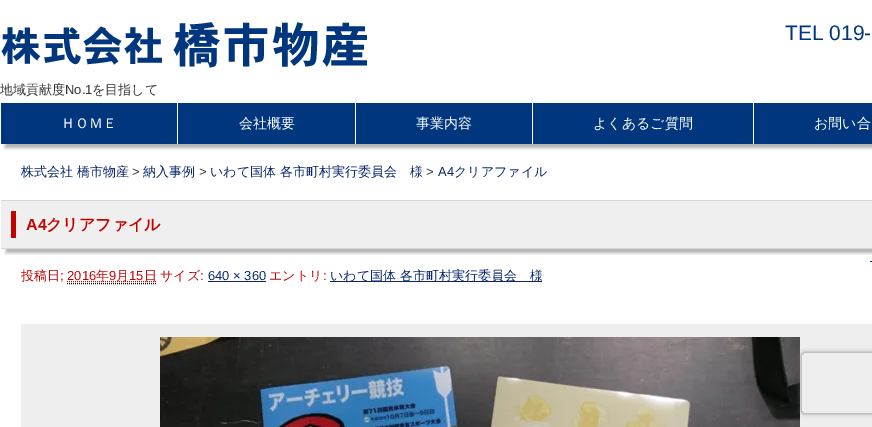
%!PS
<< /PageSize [872 427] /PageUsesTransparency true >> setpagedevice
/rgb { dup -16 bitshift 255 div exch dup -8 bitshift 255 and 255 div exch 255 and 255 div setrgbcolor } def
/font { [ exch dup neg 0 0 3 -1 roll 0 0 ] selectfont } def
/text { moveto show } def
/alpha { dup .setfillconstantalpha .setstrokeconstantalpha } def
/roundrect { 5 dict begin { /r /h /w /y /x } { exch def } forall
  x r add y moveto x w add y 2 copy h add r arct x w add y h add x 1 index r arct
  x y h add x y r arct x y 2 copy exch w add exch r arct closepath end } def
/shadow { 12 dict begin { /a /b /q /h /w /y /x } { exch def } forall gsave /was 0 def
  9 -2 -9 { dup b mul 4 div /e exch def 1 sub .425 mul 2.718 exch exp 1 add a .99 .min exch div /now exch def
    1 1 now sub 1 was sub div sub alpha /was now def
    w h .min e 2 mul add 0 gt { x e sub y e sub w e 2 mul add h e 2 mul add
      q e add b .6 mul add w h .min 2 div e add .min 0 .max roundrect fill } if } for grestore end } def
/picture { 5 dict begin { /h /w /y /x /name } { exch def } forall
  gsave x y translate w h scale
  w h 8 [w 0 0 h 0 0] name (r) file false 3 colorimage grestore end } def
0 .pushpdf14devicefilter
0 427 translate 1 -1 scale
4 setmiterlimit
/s1 { /LiberationSans-Regular 21 font 16#00367D rgb } def
/s2 { /WenQuanYiZenHei-Medium 13 font 16#333333 rgb } def
/s3 { /LiberationSans-Regular 13 font 16#333333 rgb } def
/s4 { /WenQuanYiZenHei-Medium 14 font 16#FFFFFF rgb } def
/s5 { /WenQuanYiZenHei-Medium 13 font 16#08276A rgb } def
/s6 { /LiberationSans-Regular 13 font 16#08276A rgb } def
/s7 { /LiberationSans-Bold 16 font 16#C30200 rgb } def
/s8 { /WenQuanYiZenHei-Bold 16 font 16#C30200 rgb } def
/s9 { /WenQuanYiZenHei-Medium 13 font 16#C30200 rgb } def
/s10 { /LiberationSans-Regular 13 font 16#C30200 rgb } def
16#FFFFFF rgb
0 0 872 427 rectfill
(pic1.raw) 1 22 366 46 picture
s1
(TEL 019-) 785 40 text
s2
(地域貢献度) 0 94 text
s3
(No.1) 65 94 text
s2
(を目指して) 92 94 text
16#000000 rgb
5 117 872 31 0 1.5 0.3 shadow
16#00367D rgb
1 103 871 41 rectfill
16#FFFFFF rgb
177 103 1 41 rectfill
s4
(ＨＯＭＥ) 61 128 text
355 103 1 41 rectfill
(会社概要) 239 128 text
532 103 1 41 rectfill
(事業内容) 416 128 text
753 103 1 41 rectfill
(よくあるご質問) 593 128 text
(お問い合) 814 128 text
s5
(株式会社 橋市物産) 21 176 text
s3
(>) 132 176 text
s5
(納入事例) 143 176 text
s3
(>) 199 176 text
s5
(いわて国体 各市町村実行委員会　様) 210 176 text
s3
(>) 426 176 text
s6
(A4) 438 176 text
s5
(クリアファイル) 454 176 text
16#000000 rgb
6 214 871 39 0 1.5 0.3 shadow
16#EFEFEF rgb
1 201 871 47 rectfill
16#D5D5D5 rgb
1 200 871 1 rectfill
1 248 871 1 rectfill
16#C30200 rgb
11 211 5 27 rectfill
s7
(A4) 26 230 text
s8
(クリアファイル) 46 230 text
16#08276A rgb
870 261 2 1 rectfill
s9
(投稿日) 21 280 text
s10
(; 2016) 60 280 text
[1 1] 0 setdash
67 281.5 moveto 157 281.5 lineto stroke
s9
(年) 96 280 text
s10
(9) 109 280 text
s9
(月) 116 280 text
16#000000 rgb
67 283.5 moveto 157 283.5 lineto stroke
s10
(15) 129 280 text
s9
(日) 144 280 text
(サイズ) 160 280 text
s10
(:) 200 280 text
s6
(640 × 360) 208 280 text
208 281 58 1 rectfill
s9
(エントリ) 269 280 text
s10
(:) 323 280 text
16#08276A rgb
330 281 212 1 rectfill
s5
(いわて国体 各市町村実行委員会　様) 330 280 text
16#EEEEEE rgb
21 324 851 103 rectfill
(pic2.raw) 160 337 640 90 picture
gsave
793 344 moveto 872 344 lineto 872 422 lineto 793 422 lineto closepath 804 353 moveto 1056 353 lineto 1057 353 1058 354 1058 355 curveto 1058 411 lineto 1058 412 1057 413 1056 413 curveto 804 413 lineto 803 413 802 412 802 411 curveto 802 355 lineto 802 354 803 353 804 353 curveto closepath eoclip newpath
16#808080 rgb
802 353 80 60 2 2.5 1 shadow
grestore
.poppdf14devicefilter showpage
